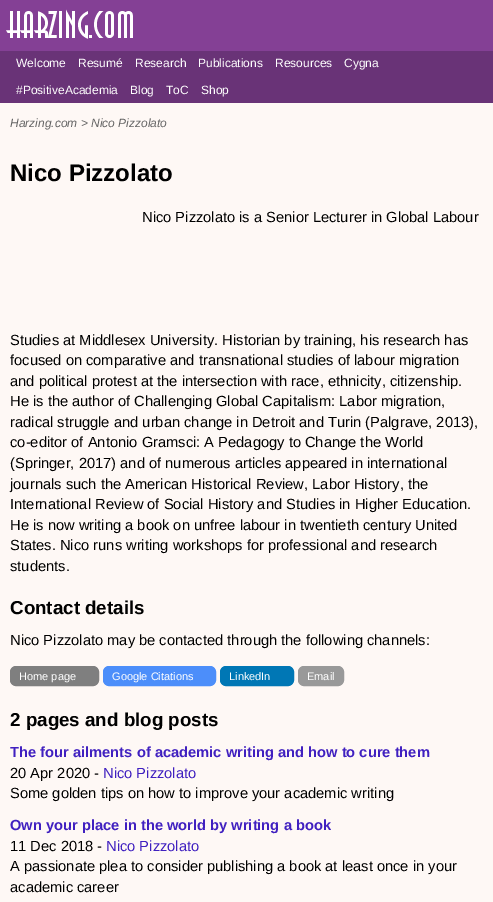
%!PS
<< /PageSize [493 902] >> setpagedevice
/rgb { dup -16 bitshift 255 div exch dup -8 bitshift 255 and 255 div exch 255 and 255 div setrgbcolor } def
/font { [ exch dup neg 0 0 3 -1 roll 0 0 ] selectfont } def
/text { moveto show } def
/roundrect { 5 dict begin { /r /h /w /y /x } { exch def } forall
  x r add y moveto x w add y 2 copy h add r arct x w add y h add x 1 index r arct
  x y h add x y r arct x y 2 copy exch w add exch r arct closepath end } def
/picture { 5 dict begin { /h /w /y /x /name } { exch def } forall
  gsave x y translate w h scale
  w h 8 [w 0 0 h 0 0] name (r) file false 3 colorimage grestore end } def
0 902 translate 1 -1 scale
4 setmiterlimit
/s1 { /LiberationSans-Regular 12 font 16#FFFFFF rgb } def
/s2 { /LiberationSans-Italic 12 font 16#666666 rgb } def
/s3 { /LiberationSans-Bold 24 font 16#000000 rgb } def
/s4 { /LiberationSans-Regular 14.7 font 16#000000 rgb } def
/s5 { /LiberationSans-Bold 18.75 font 16#000000 rgb } def
/s6 { /LiberationSans-Regular 11 font 16#FFFFFF rgb } def
/s7 { /LiberationSans-Bold 14.7 font 16#4020C0 rgb } def
/s8 { /LiberationSans-Regular 14.7 font 16#4020C0 rgb } def
16#844095 rgb
0 0 493 902 rectfill
(pic1.raw) 6 9 127 30 picture
16#693377 rgb
0 51 493 52 rectfill
s1
(Welcome) 16 67 text
(Resumé) 78 67 text
(Research) 135 67 text
(Publications) 198 67 text
(Resources) 275 67 text
(Cygna) 344 67 text
(#PositiveAcademia) 16 94 text
(Blog) 130 94 text
(ToC) 166 94 text
(Shop) 201 94 text
16#FEF8F5 rgb
0 103 493 799 rectfill
s2
(Harzing.com > Nico Pizzolato) 10 127 text
s3
(Nico Pizzolato) 10 181 text
s4
(Nico Pizzolato is a Senior Lecturer in Global Labour) 142 222 text
(Studies at Middlesex University. Historian by training, his research has) 10 345 text
(focused on comparative and transnational studies of labour migration) 10 365 text
(and political protest at the intersection with race, ethnicity, citizenship.) 10 386 text
(He is the author of Challenging Global Capitalism: Labor migration,) 10 406 text
(radical struggle and urban change in Detroit and Turin \(Palgrave, 2013\),) 10 427 text
(co-editor of Antonio Gramsci: A Pedagogy to Change the World) 10 447 text
(\(Springer, 2017\) and of numerous articles appeared in international) 10 468 text
(journals such the American Historical Review, Labor History, the) 10 489 text
(International Review of Social History and Studies in Higher Education.) 10 509 text
(He is now writing a book on unfree labour in twentieth century United) 10 530 text
(States. Nico runs writing workshops for professional and research) 10 550 text
(students.) 10 571 text
s5
(Contact details) 10 614 text
s4
(Nico Pizzolato may be contacted through the following channels:) 10 645 text
16#7F7F7F rgb
10.5 666.5 88 19 5.5 roundrect gsave fill grestore
stroke
s6
(Home page) 19 680 text
16#4C8EFA rgb
103.5 666.5 112 19 5.5 roundrect gsave fill grestore
stroke
s6
(Google Citations) 112 680 text
16#0077B5 rgb
220.5 666.5 73 19 5.5 roundrect gsave fill grestore
stroke
s6
(LinkedIn) 229 680 text
16#999999 rgb
298.5 666.5 45 19 5.5 roundrect gsave fill grestore
stroke
s6
(Email) 307 680 text
s5
(2 pages and blog posts) 10 726 text
s7
(The four ailments of academic writing and how to cure them) 10 757 text
s4
(20 Apr 2020 -) 10 778 text
s8
(Nico Pizzolato) 103 778 text
s4
(Some golden tips on how to improve your academic writing) 10 798 text
s7
(Own your place in the world by writing a book) 10 830 text
s4
(11 Dec 2018 -) 10 851 text
s8
(Nico Pizzolato) 106 851 text
s4
(A passionate plea to consider publishing a book at least once in your) 10 871 text
(academic career) 10 892 text
showpage
